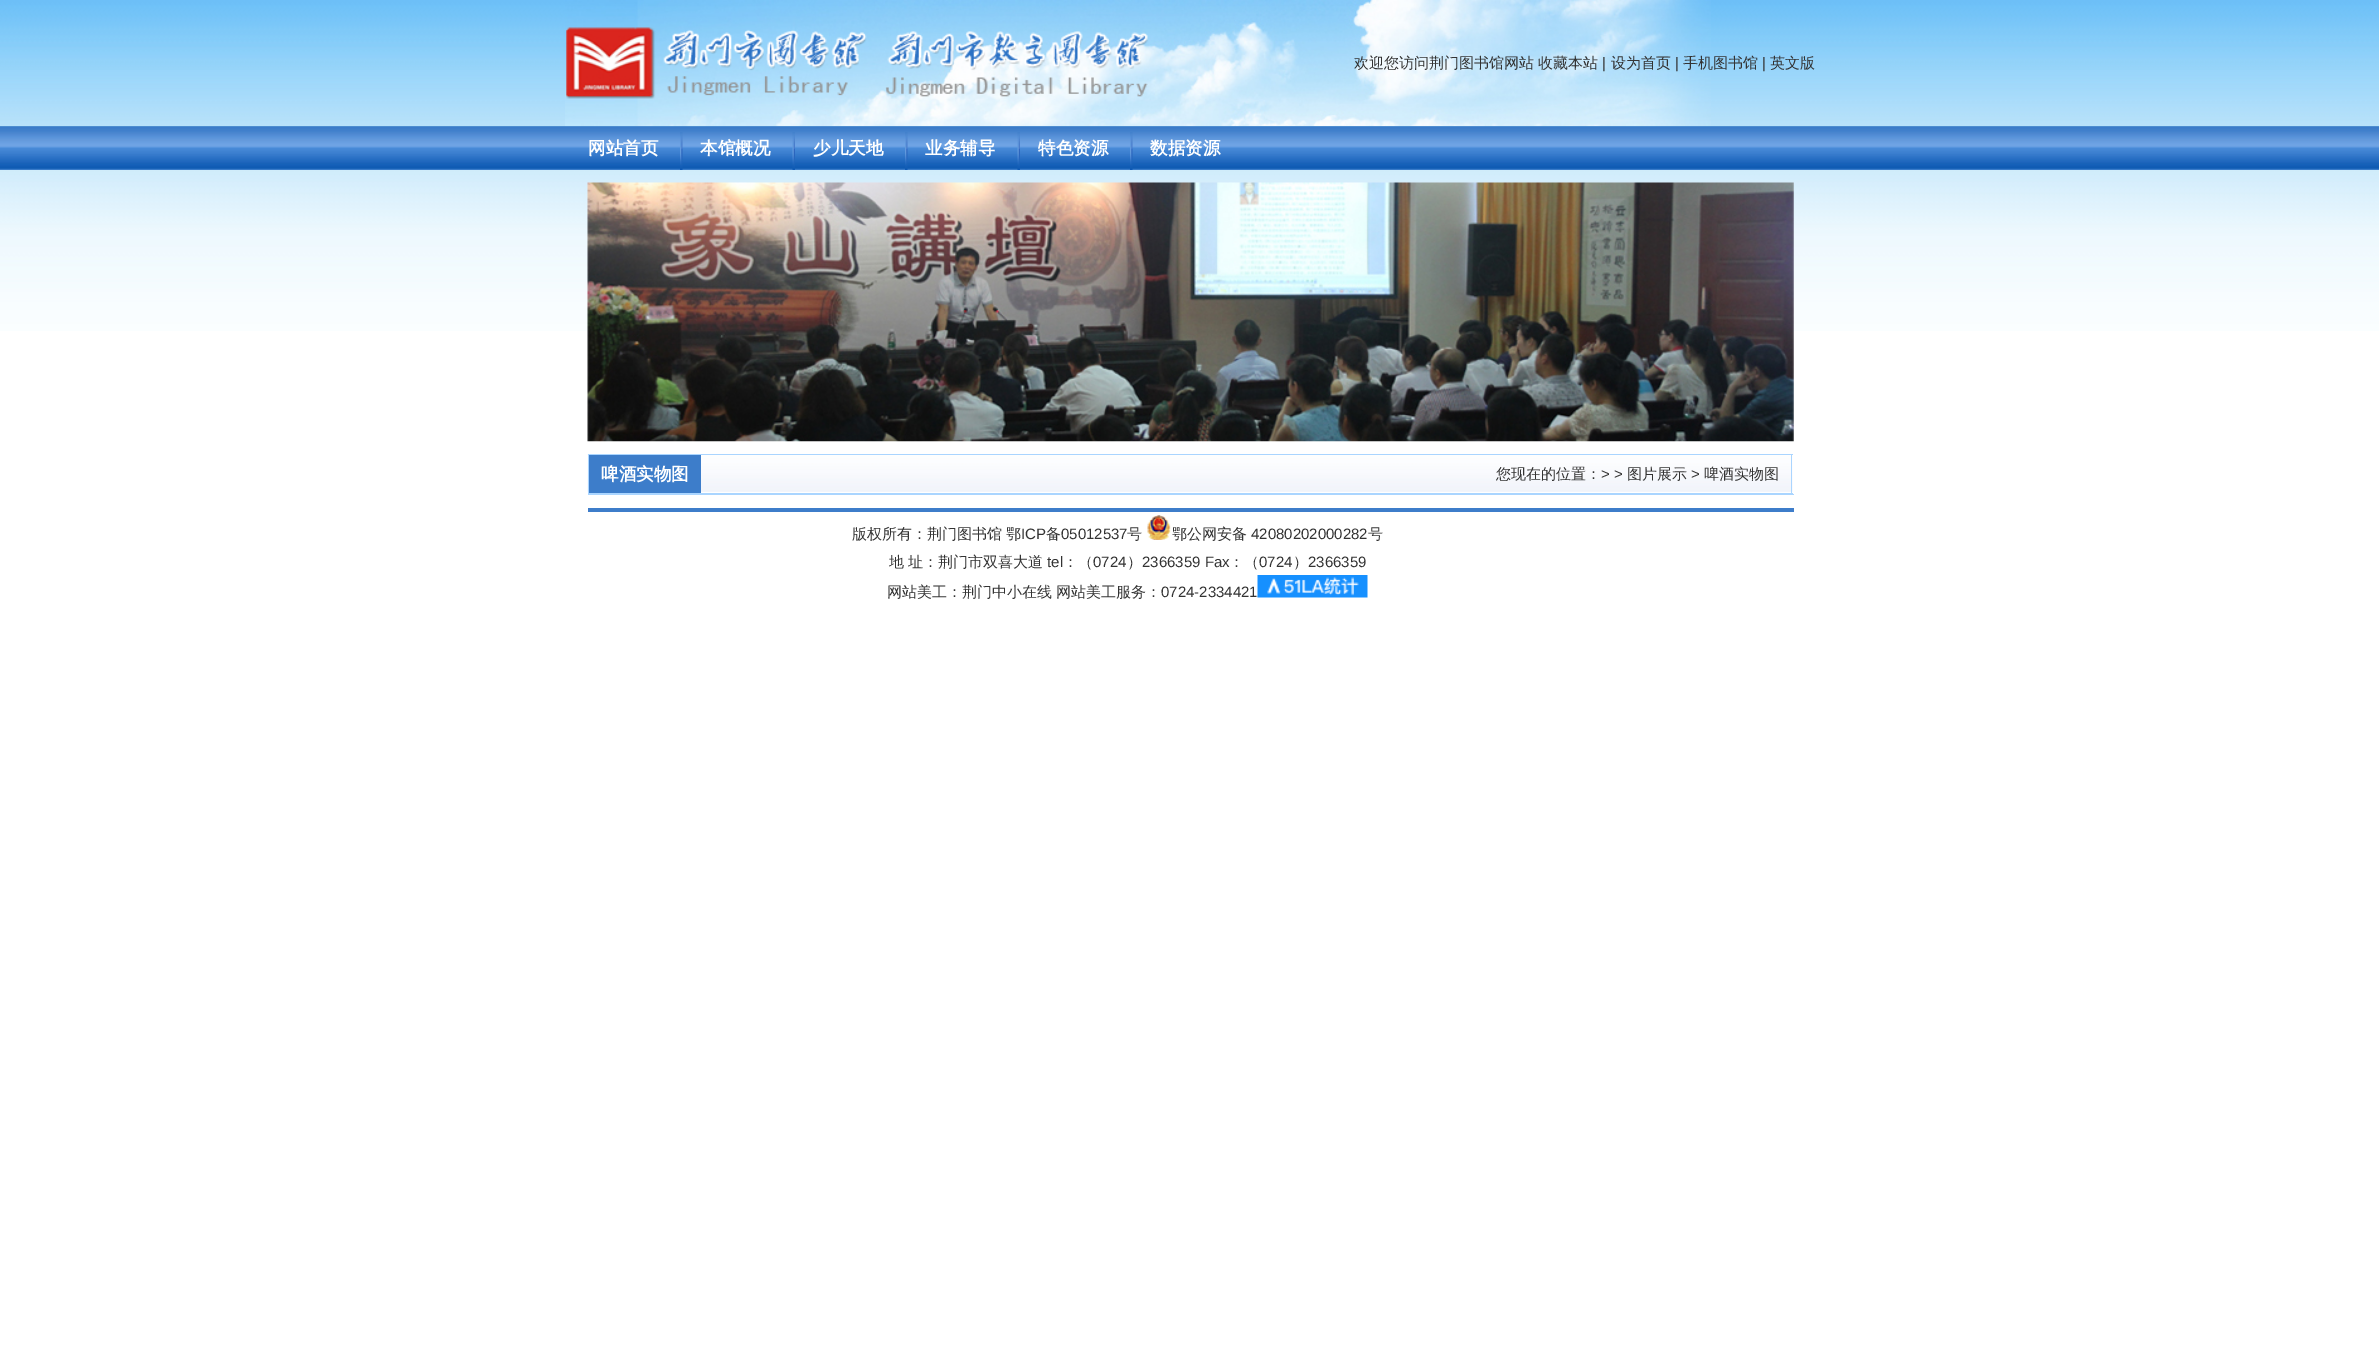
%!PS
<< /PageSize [2379 1372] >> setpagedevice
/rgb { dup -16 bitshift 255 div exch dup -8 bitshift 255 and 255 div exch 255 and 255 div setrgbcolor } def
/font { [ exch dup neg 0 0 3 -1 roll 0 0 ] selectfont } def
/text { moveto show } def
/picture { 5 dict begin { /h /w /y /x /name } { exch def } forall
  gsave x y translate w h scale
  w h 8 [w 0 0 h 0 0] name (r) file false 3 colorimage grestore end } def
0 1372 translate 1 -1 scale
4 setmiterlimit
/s1 { /WenQuanYiZenHei-Medium 15 font 16#333333 rgb } def
/s2 { /LiberationSans-Regular 15 font 16#333333 rgb } def
/s3 { /WenQuanYiZenHei-Bold 17.5 font 16#FFFFFF rgb } def
16#FFFFFF rgb
0 0 2379 1372 rectfill
(pic1.raw) 0 0 2379 331 picture
(pic2.raw) 565 0 1146 127 picture
(pic3.raw) 566 27 582 72 picture
s1
(欢迎您访问荆门图书馆网站) 1354 68 text
(收藏本站) 1538 68 text
s2
(|) 1602 68 text
s1
(设为首页) 1611 68 text
s2
(|) 1675 68 text
s1
(手机图书馆) 1683 68 text
s2
(|) 1762 68 text
s1
(英文版) 1770 68 text
(pic4.raw) 0 126 2379 44 picture
s3
(网站首页) 588 154 text
(pic5.raw) 680 132 3 38 picture
(本馆概况) 700 154 text
(pic6.raw) 792 132 3 38 picture
(少儿天地) 813 154 text
(pic5.raw) 905 132 3 38 picture
(业务辅导) 925 154 text
(pic6.raw) 1017 132 3 38 picture
(特色资源) 1038 154 text
(pic5.raw) 1130 132 3 38 picture
(数据资源) 1150 154 text
(pic7.raw) 587 182 1207 260 picture
(pic8.raw) 587 454 1206 38 picture
16#AAD5FF rgb
588 454 1205 1 rectfill
1791 454 1 40 rectfill
588 493 1205 1 rectfill
588 454 1 40 rectfill
16#3D7DCA rgb
589 455 112 38 rectfill
s3
(啤酒实物图) 601 480 text
s1
(您现在的位置：) 1496 479 text
s2
(> >) 1601 479 text
s1
(图片展示) 1627 479 text
s2
(>) 1691 479 text
s1
(啤酒实物图) 1704 479 text
16#AAD5FF rgb
588 494 1206 1 rectfill
16#3E7DCA rgb
588 508 1206 4 rectfill
s1
(版权所有：荆门图书馆) 852 539 text
(鄂) 1006 539 text
s2
(ICP) 1021 539 text
s1
(备) 1046 539 text
s2
(05012537) 1061 539 text
s1
(号) 1127 539 text
(pic9.raw) 1147 515 24 25 picture
(鄂公网安备) 1172 539 text
s2
(42080202000282) 1251 539 text
s1
(号) 1368 539 text
(地) 889 567 text
(址：荆门市双喜大道) 908 567 text
s2
(tel) 1047 567 text
s1
(：（) 1063 567 text
s2
(0724) 1093 567 text
s1
(）) 1127 567 text
s2
(2366359 Fax) 1142 567 text
s1
(：（) 1229 567 text
s2
(0724) 1259 567 text
s1
(）) 1293 567 text
s2
(2366359) 1308 567 text
s1
(网站美工：荆门中小在线) 887 597 text
(网站美工服务：) 1056 597 text
s2
(0724-2334421) 1161 597 text
(pic10.raw) 1257 575 111 23 picture
showpage
